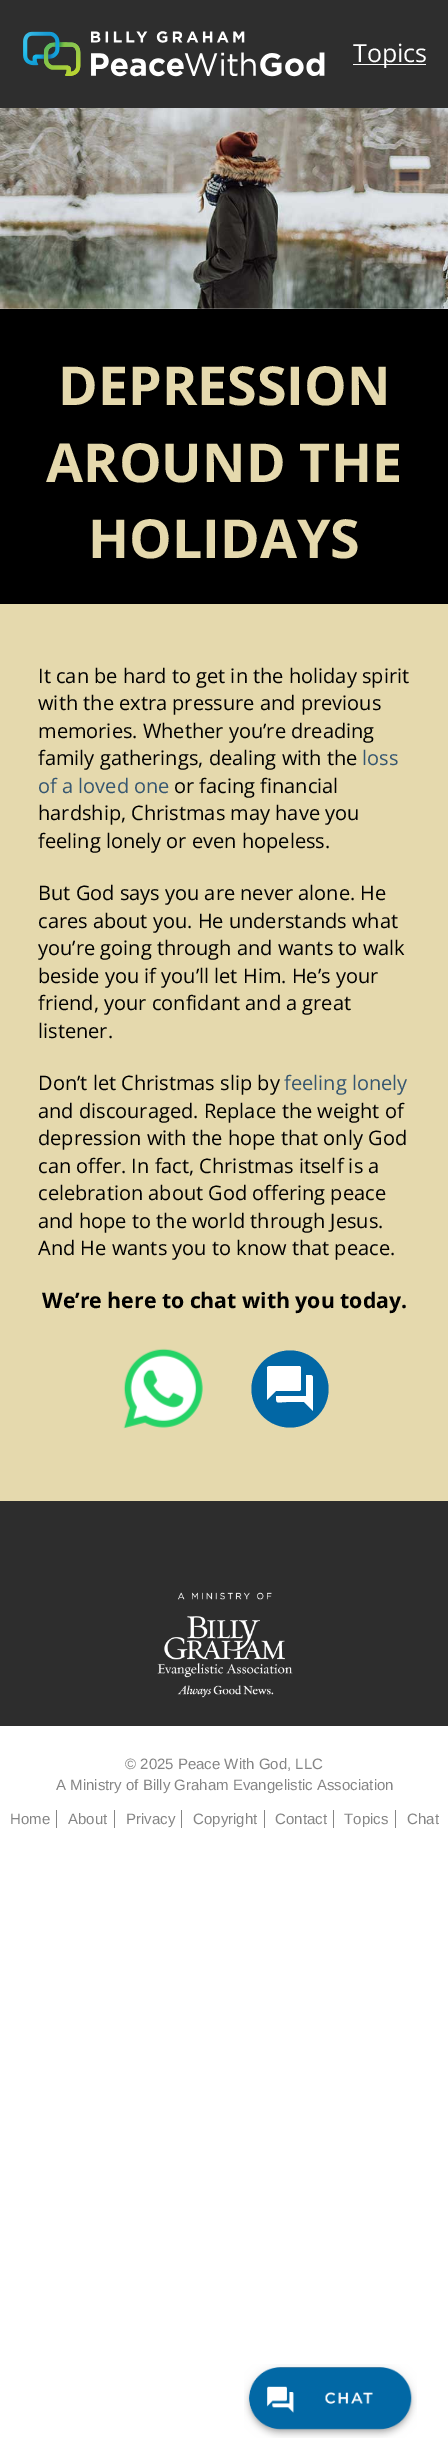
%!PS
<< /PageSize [448 2462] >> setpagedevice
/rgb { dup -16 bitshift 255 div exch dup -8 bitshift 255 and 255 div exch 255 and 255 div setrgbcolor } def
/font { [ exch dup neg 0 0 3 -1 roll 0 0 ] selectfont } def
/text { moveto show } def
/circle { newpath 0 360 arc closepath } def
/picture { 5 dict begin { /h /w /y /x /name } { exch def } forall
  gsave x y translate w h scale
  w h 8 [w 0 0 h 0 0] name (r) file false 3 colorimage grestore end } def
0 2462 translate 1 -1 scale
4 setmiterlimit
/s1 { /OpenSans-Regular 25 font 16#FFFFFF rgb } def
/s2 { /OpenSans-Bold 53.75 font 16#E5D9AD rgb } def
/s3 { /OpenSans-Regular 20 font 16#000000 rgb } def
/s4 { /OpenSans-Regular 20 font 16#355670 rgb } def
/s5 { /OpenSans-Bold 21.25 font 16#000000 rgb } def
/s6 { /LiberationSans-Regular 15 font 16#858585 rgb } def
16#FFFFFF rgb
0 0 448 2462 rectfill
16#2E2E2E rgb
0 0 448 108 rectfill
(pic1.raw) 23 31 302 46 picture
16#FFFFFF rgb
353 64 73 1 rectfill
s1
(Topics) 353 62 text
(pic2.raw) 0 108 448 201 picture
16#000000 rgb
0 309 448 295 rectfill
s2
(DEPRESSION) 58 405 text
(AROUND THE) 46 482 text
(HOLIDAYS) 88 558 text
0 604 448 897 rectfill
s3
(It can be hard to get in the holiday spirit) 38 683 text
(with the extra pressure and previous) 38 710 text
(memories. Whether you’re dreading) 38 738 text
(family gatherings, dealing with the) 38 765 text
s4
(loss) 362 765 text
(of a loved one) 38 793 text
s3
(or facing financial) 174 793 text
(hardship, Christmas may have you) 38 820 text
(feeling lonely or even hopeless.) 38 848 text
(But God says you are never alone. He) 38 900 text
(cares about you. He understands what) 38 928 text
(you’re going through and wants to walk) 38 955 text
(beside you if you’ll let Him. He’s your) 38 983 text
(friend, your confidant and a great) 38 1010 text
(listener.) 38 1038 text
(Don’t let Christmas slip by) 38 1090 text
s4
(feeling lonely) 284 1090 text
s3
(and discouraged. Replace the weight of) 38 1118 text
(depression with the hope that only God) 38 1145 text
(can offer. In fact, Christmas itself is a) 38 1173 text
(celebration about God offering peace) 38 1200 text
(and hope to the world through Jesus.) 38 1228 text
(And He wants you to know that peace.) 38 1255 text
s5
(We’re here to chat with you today.) 42 1308 text
(pic3.raw) 123 1348 80 81 picture
16#0267A5 rgb
290 1389 38.5 circle fill
16#FFFFFF rgb
301 1389 moveto 301 1368 lineto 301 1367 300 1366 299 1366 curveto 270 1366 lineto 268 1366 267 1367 267 1368 curveto 267 1400 lineto 276 1391 lineto 299 1391 lineto 300 1391 301 1390 301 1389 curveto 310 1375 moveto 306 1375 lineto 306 1396 lineto 276 1396 lineto 276 1405 277 1402 287 1402 curveto 304 1402 lineto 313 1411 lineto 313 1378 lineto 313 1376 312 1375 310 1375 curveto closepath fill
16#2D2D2D rgb
0 1501 448 225 rectfill
(pic4.raw) 157 1592 136 106 picture
s6
(© 2025 Peace With God, LLC) 125 1769 text
(A Ministry of Billy Graham Evangelistic Association) 56 1790 text
(Home) 10 1824 text
56 1810 1 18 rectfill
(About) 68 1824 text
114 1810 1 18 rectfill
(Privacy) 126 1824 text
181 1810 1 18 rectfill
(Copyright) 193 1824 text
264 1810 1 18 rectfill
(Contact) 275 1824 text
333 1810 1 18 rectfill
(Topics) 344 1824 text
395 1810 1 18 rectfill
(Chat) 407 1824 text
(pic5.raw) 244 2364 173 74 picture
showpage
